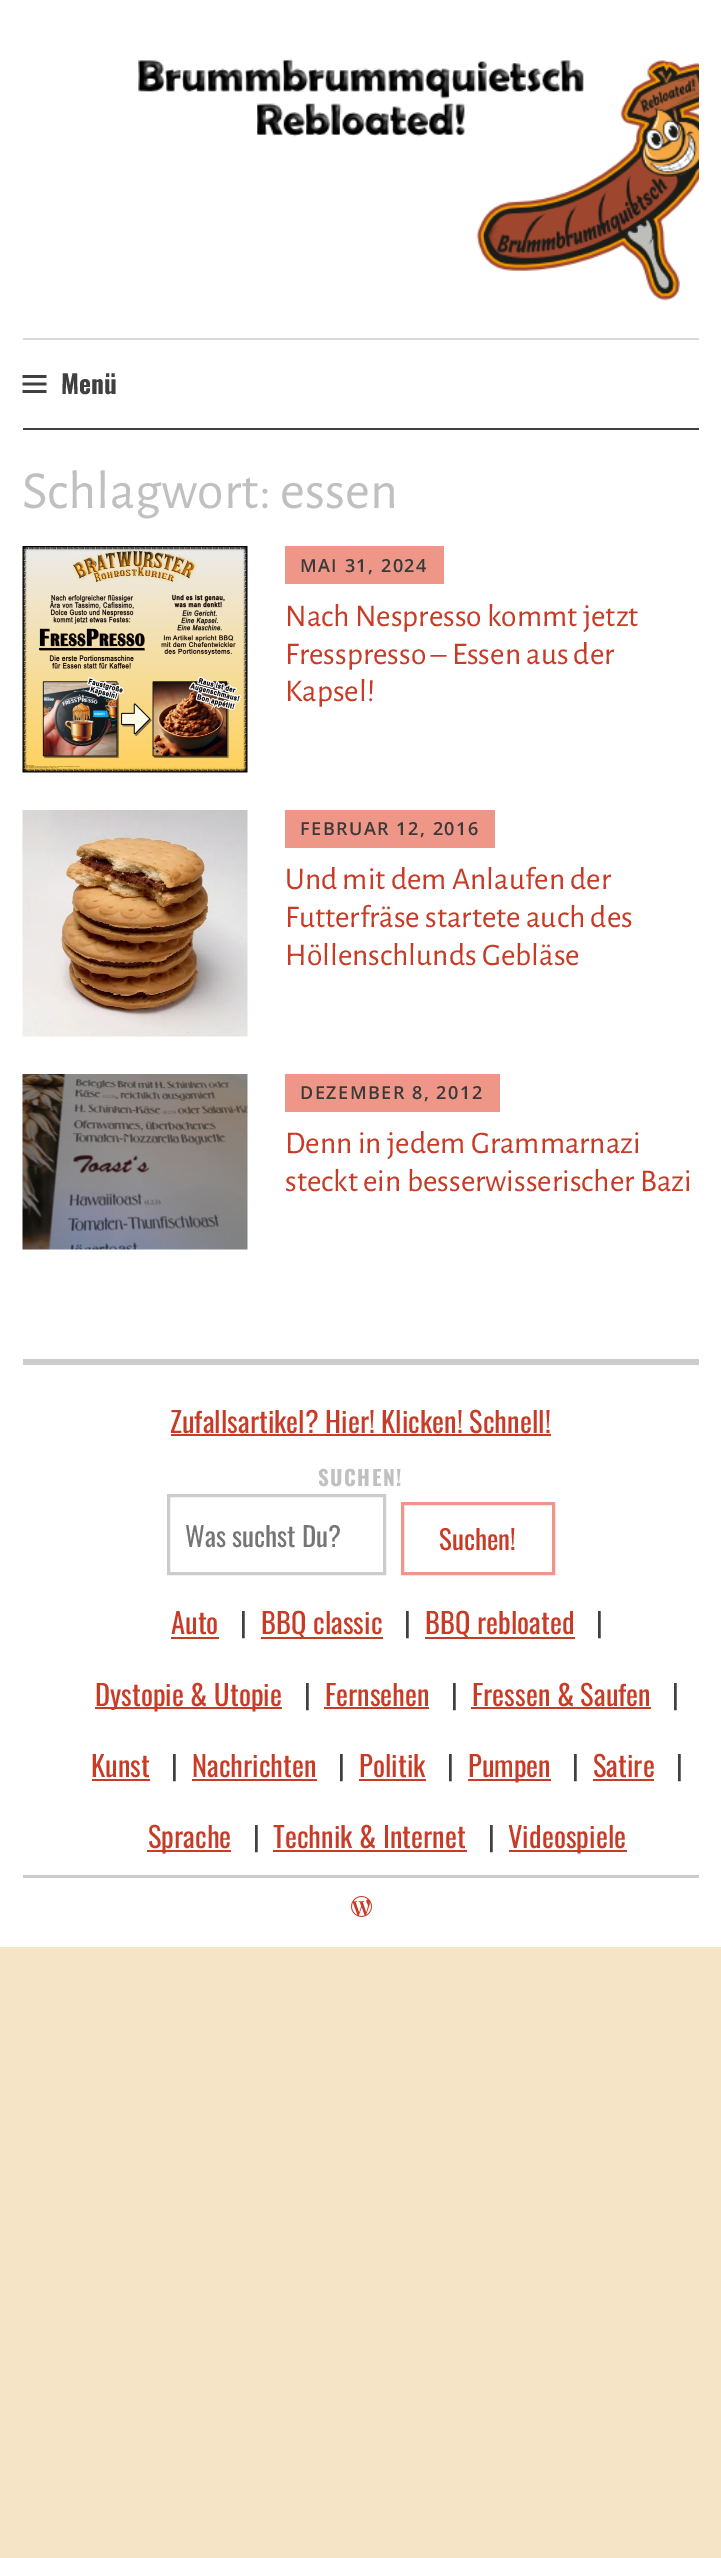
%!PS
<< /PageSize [721 2558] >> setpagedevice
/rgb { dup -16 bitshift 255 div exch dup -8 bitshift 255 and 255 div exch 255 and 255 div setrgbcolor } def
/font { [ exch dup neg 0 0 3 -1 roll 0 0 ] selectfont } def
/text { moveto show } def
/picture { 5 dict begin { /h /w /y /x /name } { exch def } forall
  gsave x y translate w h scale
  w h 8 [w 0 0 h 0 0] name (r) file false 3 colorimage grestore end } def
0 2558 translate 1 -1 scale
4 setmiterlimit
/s1 { /Oswald-Bold 25.5 font 16#404040 rgb } def
/s2 { /AlegreyaSans-Regular 54 font 16#C0C0C0 rgb } def
/s3 { /AlegreyaSans-Regular 31.5 font 16#C83C27 rgb } def
/s4 { /Oswald-Regular 28.5 font 16#C83C27 rgb } def
/s5 { /Oswald-Regular 27 font 16#757575 rgb } def
/s6 { /Oswald-Regular 27 font 16#C83C27 rgb } def
/s7 { /Oswald-Regular 28.5 font 16#404040 rgb } def
16#F5E4C6 rgb
0 0 721 2558 rectfill
16#FFFFFF rgb
0 0 721 1947 rectfill
(pic1.raw) 138 59 561 242 picture
16#D9D9D9 rgb
23 338 676 2 rectfill
16#404040 rgb
23 428 676 2 rectfill
(pic2.raw) 22 375 25 18 picture
s1
(Menü) 61 394 text
s2
(Schlagwort: essen) 22 508 text
(pic3.raw) 22 546 226 227 picture
16#EE9688 rgb
285 546 159 38 rectfill
/OpenSans-SemiBold 18 font
16#3A3A3A rgb
300 572 moveto 1.5 0 (MAI 31, 2024) ashow
s3
(Nach Nespresso kommt jetzt) 285 626 text
(Fresspresso – Essen aus der) 285 664 text
(Kapsel!) 285 701 text
(pic4.raw) 22 810 226 227 picture
16#EE9688 rgb
285 810 210 38 rectfill
/OpenSans-SemiBold 18 font
16#3A3A3A rgb
300 835 moveto 1.5 0 (FEBRUAR 12, 2016) ashow
s3
(Und mit dem Anlaufen der) 285 889 text
(Futterfräse startete auch des) 285 927 text
(Höllenschlunds Gebläse) 285 965 text
(pic5.raw) 22 1074 226 176 picture
16#EE9688 rgb
285 1074 215 38 rectfill
/OpenSans-SemiBold 18 font
16#3A3A3A rgb
300 1099 moveto 1.5 0 (DEZEMBER 8, 2012) ashow
s3
(Denn in jedem Grammarnazi) 285 1153 text
(steckt ein besserwisserischer Bazi) 285 1191 text
16#CCCCCC rgb
23 1359 676 6 rectfill
s4
(Zufallsartikel? Hier! Klicken! Schnell!) 170 1433 text
171 1434 380 2 rectfill
/Oswald-Bold 21 font
16#C0C0C0 rgb
318 1486 moveto 1.5 0 (SUCHEN!) ashow
16#CCCCCC rgb
3 setlinewidth
168.5 1495.5 216 78 rectstroke
s5
(Was suchst Du?) 185 1547 text
16#EE9688 rgb
402.5 1503.5 151 70 rectstroke
s6
(Suchen!) 439 1550 text
s4
(Auto) 171 1634 text
171 1637 48 2 rectfill
s7
(|) 240 1634 text
16#C83C27 rgb
261 1637 122 2 rectfill
(BBQ classic) 261 1634 text
s7
(|) 404 1634 text
16#C83C27 rgb
425 1637 150 2 rectfill
(BBQ rebloated) 425 1634 text
s7
(|) 596 1634 text
16#C83C27 rgb
95 1707 187 2 rectfill
(Dystopie & Utopie) 95 1706 text
s7
(|) 304 1706 text
s4
(Fernsehen) 325 1706 text
324 1707 105 2 rectfill
s7
(|) 451 1706 text
s4
(Fressen & Saufen) 472 1706 text
471 1707 180 2 rectfill
s7
(|) 672 1706 text
s4
(Kunst) 91 1777 text
92 1779 58 2 rectfill
s7
(|) 171 1777 text
s4
(Nachrichten) 192 1777 text
192 1779 125 2 rectfill
s7
(|) 338 1777 text
s4
(Politik) 359 1777 text
359 1779 67 2 rectfill
s7
(|) 447 1777 text
16#C83C27 rgb
468 1779 83 2 rectfill
(Pumpen) 468 1777 text
s7
(|) 572 1777 text
s4
(Satire) 593 1777 text
593 1779 61 2 rectfill
s7
(|) 676 1777 text
16#C83C27 rgb
147 1850 84 2 rectfill
(Sprache) 148 1848 text
s7
(|) 253 1848 text
s4
(Technik & Internet) 273 1848 text
273 1850 194 2 rectfill
s7
(|) 488 1848 text
16#C83C27 rgb
509 1850 118 2 rectfill
(Videospiele) 508 1848 text
16#CCCCCC rgb
23 1875 676 3 rectfill
(pic6.raw) 351 1896 21 21 picture
showpage
